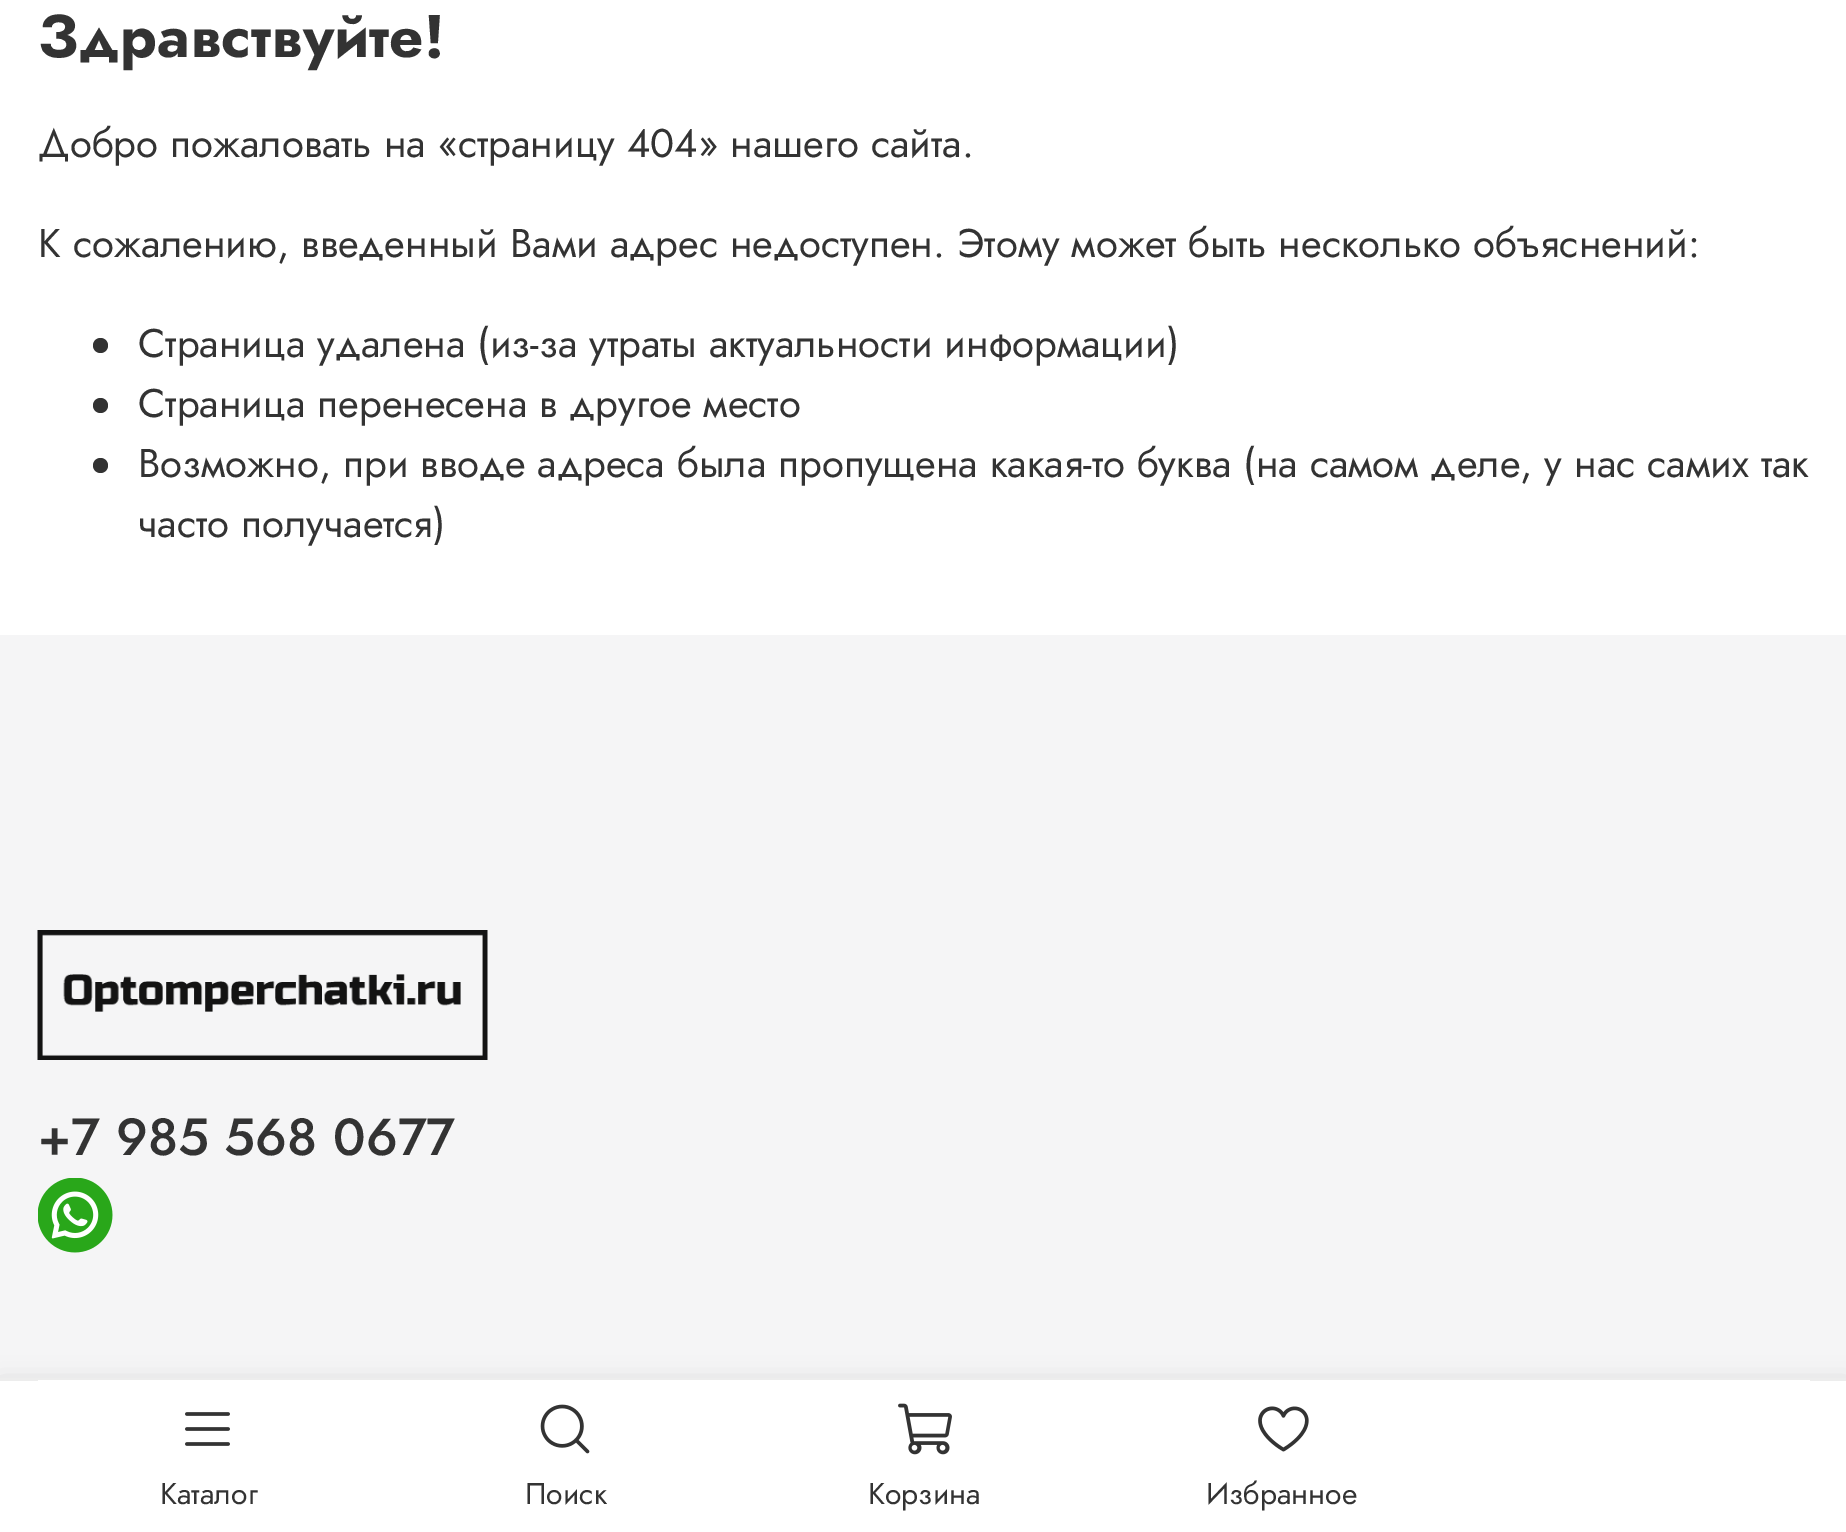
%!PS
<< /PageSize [1846 1532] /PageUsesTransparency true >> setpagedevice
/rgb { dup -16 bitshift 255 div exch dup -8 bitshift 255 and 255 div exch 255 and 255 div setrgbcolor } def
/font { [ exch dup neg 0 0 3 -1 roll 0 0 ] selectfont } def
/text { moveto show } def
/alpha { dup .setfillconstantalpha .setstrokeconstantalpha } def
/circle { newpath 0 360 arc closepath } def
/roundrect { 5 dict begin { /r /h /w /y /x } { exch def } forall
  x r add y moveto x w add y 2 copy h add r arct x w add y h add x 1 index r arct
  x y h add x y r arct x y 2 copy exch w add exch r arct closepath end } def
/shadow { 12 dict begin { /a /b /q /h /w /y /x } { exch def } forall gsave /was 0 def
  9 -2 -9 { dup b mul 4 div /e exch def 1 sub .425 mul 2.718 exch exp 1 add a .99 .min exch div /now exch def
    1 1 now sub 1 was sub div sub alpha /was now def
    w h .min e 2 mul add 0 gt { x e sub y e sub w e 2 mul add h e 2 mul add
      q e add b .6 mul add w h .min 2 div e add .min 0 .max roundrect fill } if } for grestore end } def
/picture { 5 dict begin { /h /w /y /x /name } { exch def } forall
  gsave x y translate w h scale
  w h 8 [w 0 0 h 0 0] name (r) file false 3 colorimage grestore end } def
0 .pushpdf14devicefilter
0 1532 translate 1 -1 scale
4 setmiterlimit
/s1 { /Jost-Bold 60 font 16#333333 rgb } def
/s2 { /Jost-Regular 40 font 16#333333 rgb } def
/s3 { /Jost-Medium 52 font 16#333333 rgb } def
/s4 { /Jost-Regular 30 font 16#333333 rgb } def
16#FFFFFF rgb
0 0 1846 1532 rectfill
s1
(Здравствуйте!) 38 57 text
s2
(Добро пожаловать на «страницу 404» нашего сайта.) 38 157 text
(К сожалению, введенный Вами адрес недоступен. Этому может быть несколько объяснений:) 38 257 text
100.5 345.5 7.5 circle fill
(Страница удалена \(из-за утраты актуальности информации\)) 138 357 text
100.5 405.5 7.5 circle fill
(Страница перенесена в другое место) 138 417 text
100.5 465.5 7.5 circle fill
(Возможно, при вводе адреса была пропущена какая-то буква \(на самом деле, у нас самих так) 138 477 text
(часто получается\)) 138 537 text
16#F5F5F6 rgb
0 635 1846 743 rectfill
(pic1.raw) 37 930 451 130 picture
s3
(+7 985 568 0677) 38 1155 text
(pic2.raw) 38 1178 75 75 picture
16#000000 rgb
0 1383 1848 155 0 12.5 0.12 shadow
16#FFFFFF rgb
0 1381 1846 151 rectfill
16#EDEDED rgb
0 1378 1846 3 rectfill
16#FFFFFF rgb
38 1380 1772 1 rectfill
(pic3.raw) 185 1412 45 34 picture
s4
(Каталог) 160 1504 text
(pic4.raw) 540 1404 50 50 picture
(Поиск) 525 1504 text
(pic5.raw) 898 1403 54 52 picture
(Корзина) 868 1504 text
(pic6.raw) 1258 1406 51 46 picture
(Избранное) 1206 1504 text
.poppdf14devicefilter showpage
